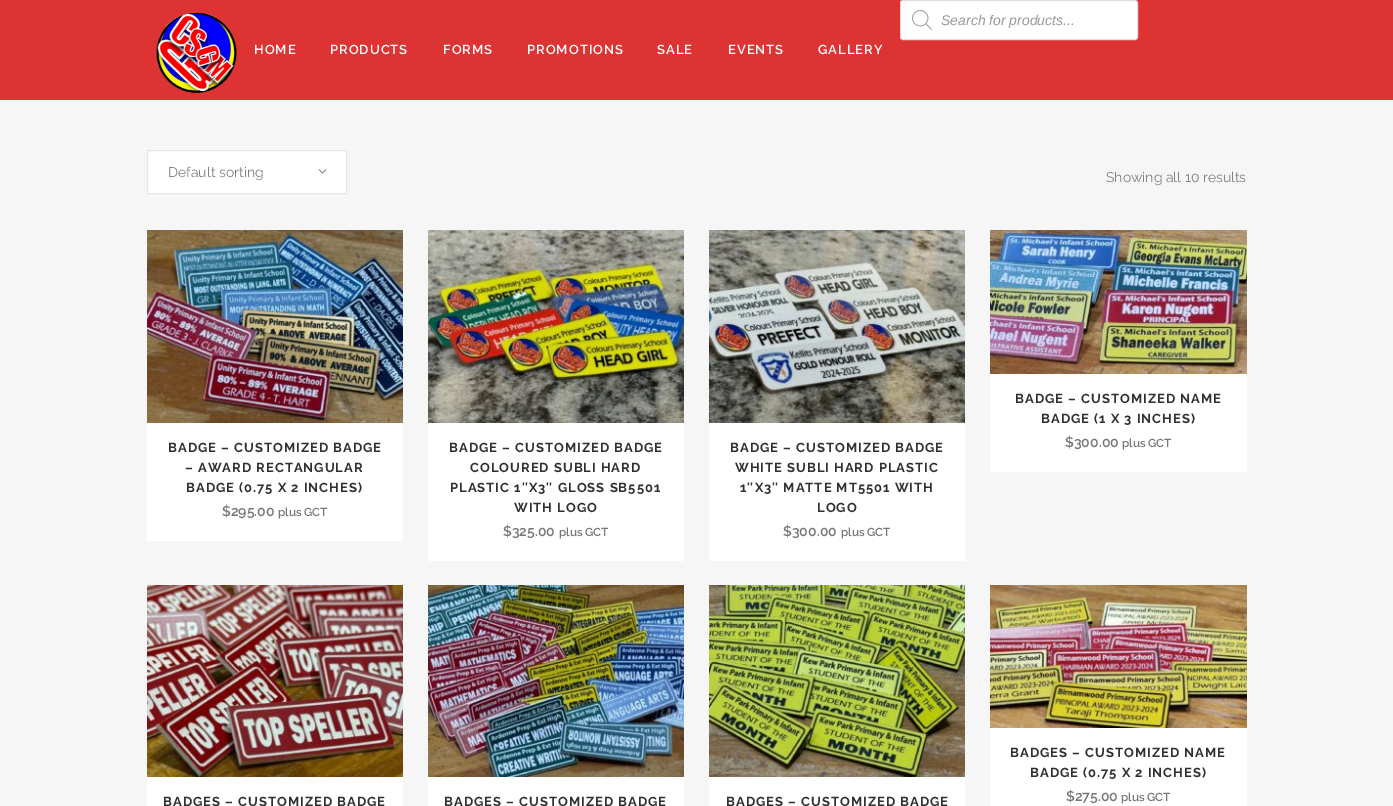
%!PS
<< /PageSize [1393 806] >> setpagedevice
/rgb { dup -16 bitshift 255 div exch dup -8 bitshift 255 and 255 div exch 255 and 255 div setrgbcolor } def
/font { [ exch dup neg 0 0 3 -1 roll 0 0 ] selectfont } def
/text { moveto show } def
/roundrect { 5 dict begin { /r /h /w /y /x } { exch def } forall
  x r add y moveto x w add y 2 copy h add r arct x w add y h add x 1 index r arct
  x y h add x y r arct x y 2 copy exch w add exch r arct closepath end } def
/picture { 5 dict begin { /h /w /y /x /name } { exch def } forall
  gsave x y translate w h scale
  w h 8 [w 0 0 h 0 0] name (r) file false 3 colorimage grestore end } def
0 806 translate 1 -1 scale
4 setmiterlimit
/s1 { /LiberationSans-Italic 14 font 16#999999 rgb } def
/s2 { /Raleway-Regular 14 font 16#818181 rgb } def
/s3 { /Raleway-SemiBold 14 font 16#777777 rgb } def
/s4 { /Raleway-SemiBold 11.5 font 16#777777 rgb } def
16#F6F6F6 rgb
0 0 1393 806 rectfill
16#DD3333 rgb
0 0 1393 100 rectfill
(pic1.raw) 155 12 82 83 picture
16#FFFFFF rgb
900.5 0.5 237 39 2.5 roundrect gsave fill grestore
16#DDDDDD rgb
stroke
(pic2.raw) 912 10 20 20 picture
s1
(Search for products...) 941 25 text
/Raleway-SemiBold 13 font
16#FFFFFF rgb
254 54 moveto 1 0 (HOME) ashow
330 54 moveto 1 0 (PRODUCTS) ashow
443 54 moveto 1 0 (FORMS) ashow
527 54 moveto 1 0 (PROMOTIONS) ashow
657 54 moveto 1 0 (SALE) ashow
728 54 moveto 1 0 (EVENTS) ashow
818 54 moveto 1 0 (GALLERY) ashow
147.5 150.5 moveto 346.5 150.5 lineto 346.5 193.5 lineto 147.5 193.5 lineto closepath gsave fill grestore
16#E6E6E6 rgb
stroke
s2
(Default sorting) 168 177 text
(pic3.raw) 318 169 9 5 picture
(Showing all 10 results) 1106 182 text
16#FFFFFF rgb
990 374 257 98 rectfill
(pic4.raw) 990 230 257 144 picture
/Raleway-Bold 13 font
16#303030 rgb
1015 403 moveto 1 0 (BADGE – CUSTOMIZED NAME) ashow
1041 423 moveto 1 0 (BADGE \(1 X 3 INCHES\)) ashow
s3
($300.00) 1065 447 text
s4
(plus GCT) 1122 447 text
16#FFFFFF rgb
147 423 256 118 rectfill
(pic5.raw) 147 230 256 193 picture
/Raleway-Bold 13 font
16#303030 rgb
168 452 moveto 1 0 (BADGE – CUSTOMIZED BADGE) ashow
185 472 moveto 1 0 (– AWARD RECTANGULAR) ashow
186 492 moveto 1 0 (BADGE \(0.75 X 2 INCHES\)) ashow
s3
($295.00) 222 516 text
s4
(plus GCT) 278 516 text
16#FFFFFF rgb
428 423 256 138 rectfill
(pic6.raw) 428 230 256 193 picture
/Raleway-Bold 13 font
16#303030 rgb
449 452 moveto 1 0 (BADGE – CUSTOMIZED BADGE) ashow
470 472 moveto 1 0 (COLOURED SUBLI HARD) ashow
450 492 moveto 1 0 (PLASTIC 1″X3″ GLOSS SB5501) ashow
514 512 moveto 1 0 (WITH LOGO) ashow
s3
($325.00) 503 536 text
s4
(plus GCT) 559 536 text
16#FFFFFF rgb
709 423 256 138 rectfill
(pic7.raw) 709 230 256 193 picture
/Raleway-Bold 13 font
16#303030 rgb
730 452 moveto 1 0 (BADGE – CUSTOMIZED BADGE) ashow
735 472 moveto 1 0 (WHITE SUBLI HARD PLASTIC) ashow
740 492 moveto 1 0 (1″X3″ MATTE MT5501 WITH) ashow
817 512 moveto 1 0 (LOGO) ashow
s3
($300.00) 783 536 text
s4
(plus GCT) 841 536 text
16#FFFFFF rgb
147 777 256 29 rectfill
(pic8.raw) 147 585 256 192 picture
/Raleway-Bold 13 font
16#303030 rgb
163 806 moveto 1 0 (BADGES – CUSTOMIZED BADGE) ashow
16#FFFFFF rgb
428 777 256 29 rectfill
(pic9.raw) 428 585 256 192 picture
16#303030 rgb
444 806 moveto 1 0 (BADGES – CUSTOMIZED BADGE) ashow
16#FFFFFF rgb
709 777 256 29 rectfill
(pic10.raw) 709 585 256 192 picture
16#303030 rgb
726 806 moveto 1 0 (BADGES – CUSTOMIZED BADGE) ashow
16#FFFFFF rgb
990 728 257 78 rectfill
(pic11.raw) 990 585 257 143 picture
16#303030 rgb
1010 757 moveto 1 0 (BADGES – CUSTOMIZED NAME) ashow
1030 777 moveto 1 0 (BADGE \(0.75 X 2 INCHES\)) ashow
s3
($275.00) 1066 801 text
s4
(plus GCT) 1121 801 text
showpage
